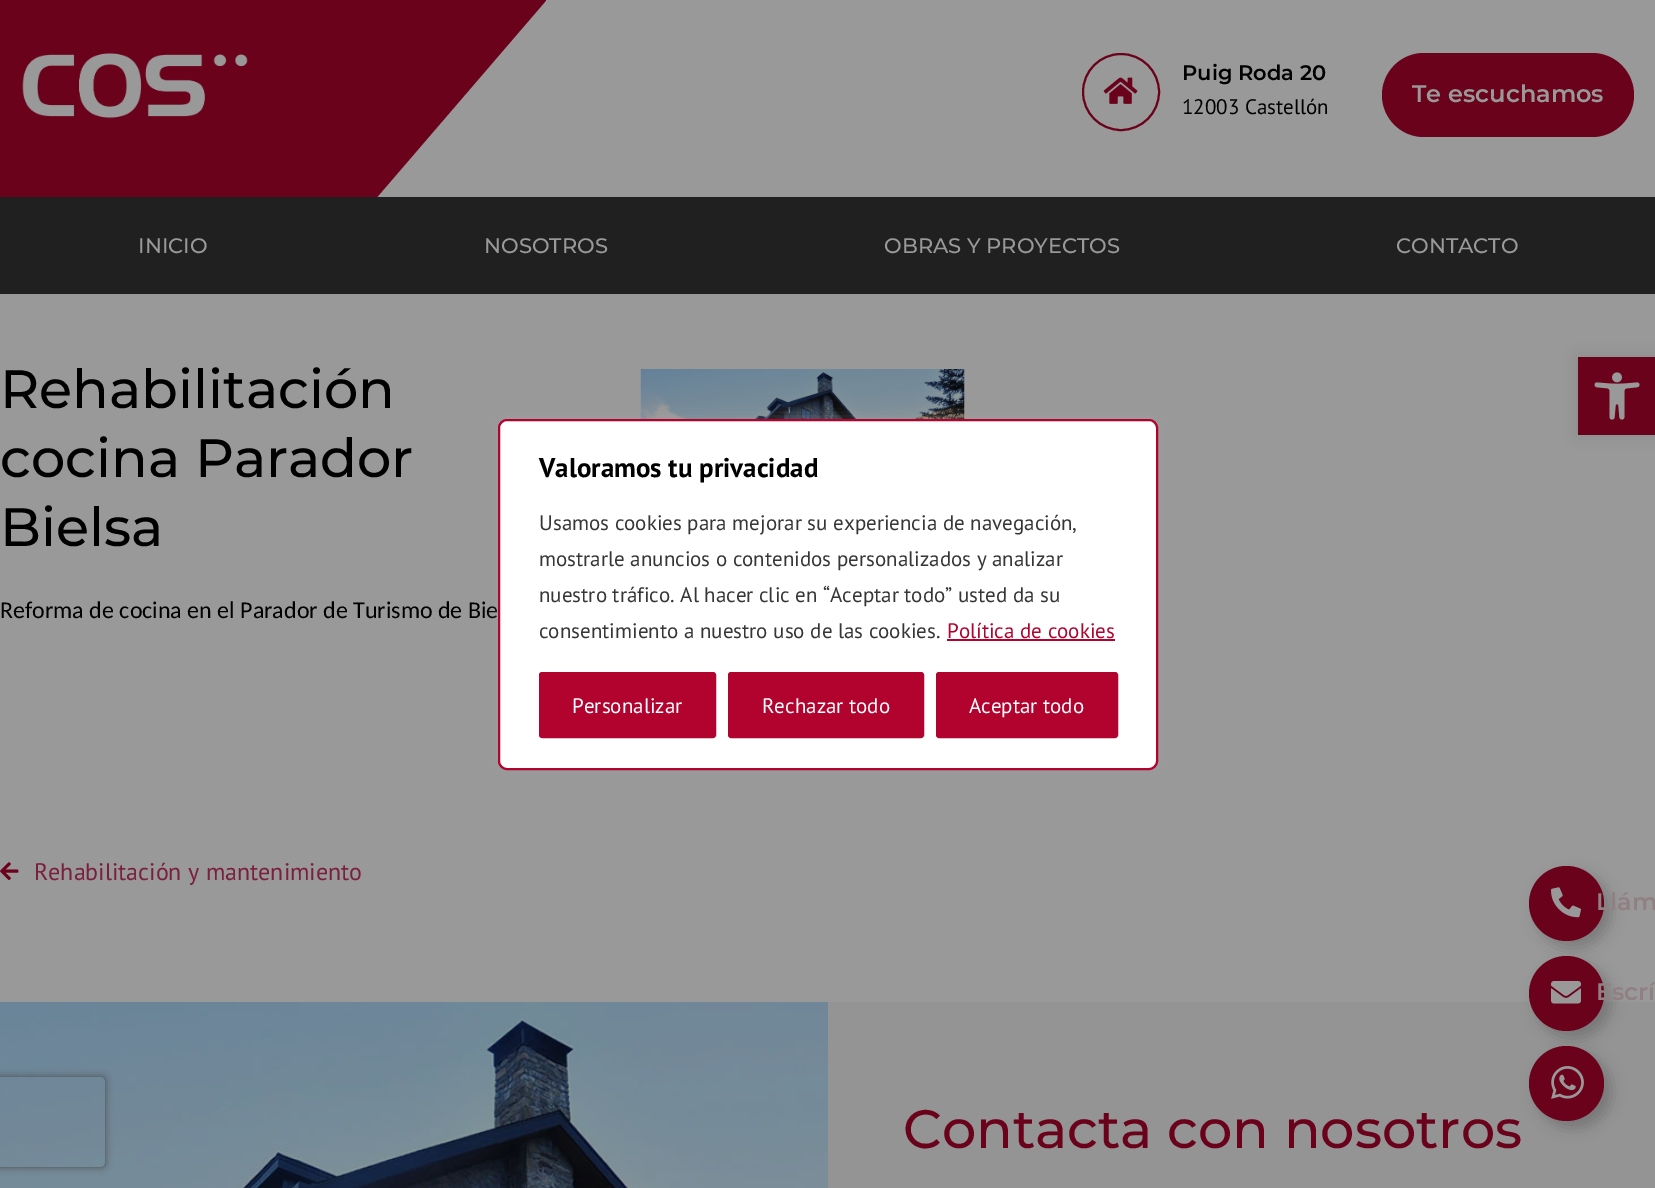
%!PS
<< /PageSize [1655 1188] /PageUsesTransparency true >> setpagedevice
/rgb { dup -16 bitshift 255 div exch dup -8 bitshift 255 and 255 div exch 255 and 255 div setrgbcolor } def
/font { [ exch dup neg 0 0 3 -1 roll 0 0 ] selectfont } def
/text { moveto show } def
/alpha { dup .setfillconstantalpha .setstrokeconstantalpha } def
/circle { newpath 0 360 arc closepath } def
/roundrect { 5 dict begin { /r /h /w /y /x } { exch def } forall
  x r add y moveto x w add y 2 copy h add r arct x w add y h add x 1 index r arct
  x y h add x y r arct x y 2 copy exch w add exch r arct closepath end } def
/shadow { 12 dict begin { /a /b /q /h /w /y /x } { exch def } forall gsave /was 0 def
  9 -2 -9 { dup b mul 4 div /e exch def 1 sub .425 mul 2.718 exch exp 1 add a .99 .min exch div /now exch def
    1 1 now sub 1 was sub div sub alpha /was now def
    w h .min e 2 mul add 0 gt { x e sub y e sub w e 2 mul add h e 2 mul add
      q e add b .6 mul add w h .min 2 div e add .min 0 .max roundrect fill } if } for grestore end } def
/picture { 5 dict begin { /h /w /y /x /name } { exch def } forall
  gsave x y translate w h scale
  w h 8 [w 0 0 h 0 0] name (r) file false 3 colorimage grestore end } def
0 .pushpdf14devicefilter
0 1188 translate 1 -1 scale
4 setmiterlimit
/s1 { /Montserrat-SemiBold 21 font 16#000000 rgb } def
/s2 { /PTSans-Regular 21 font 16#000000 rgb } def
/s3 { /Montserrat-SemiBold 24 font 16#999999 rgb } def
/s4 { /Montserrat-Medium 21 font 16#999999 rgb } def
/s5 { /Montserrat-Medium 54 font 16#000000 rgb } def
/s6 { /Carlito-Regular 24 font 16#000000 rgb } def
/s7 { /PTSans-Regular 24 font 16#7A1F3D rgb } def
/s8 { /Montserrat-Medium 54 font 16#6B021C rgb } def
/s9 { /PTSans-Bold 27 font 16#000000 rgb } def
/s10 { /PTSans-Regular 21 font 16#363636 rgb } def
/s11 { /PTSans-Regular 21 font 16#B2032F rgb } def
/s12 { /PTSans-Regular 21 font 16#FFFFFF rgb } def
/s13 { /Montserrat-SemiBold 24 font 16#908084 rgb } def
16#999999 rgb
0 0 1655 1188 rectfill
16#6B021C rgb
0 0 546 197 rectfill
gsave
333 0 213 249 rectclip
16#999999 rgb
333 249 moveto 547 0 lineto 547 249 lineto closepath eofill
grestore
(pic1.raw) 22 53 226 65 picture
2 setlinewidth
1121 92 38 circle stroke
(pic2.raw) 1103 77 35 27 picture
s1
(Puig Roda 20) 1182 80 text
s2
(12003 Castellón) 1182 114 text
16#6B021C rgb
1382 53 252 84 42 roundrect fill
s3
(Te escuchamos) 1412 102 text
16#202020 rgb
0 197 1655 97 rectfill
s4
(INICIO) 138 253 text
(NOSOTROS) 484 253 text
(OBRAS Y PROYECTOS) 884 253 text
(CONTACTO) 1396 253 text
s5
(Rehabilitación) 0 408 text
(cocina Parador) 0 477 text
(Bielsa) 0 546 text
s6
(Reforma de cocina en el Parador de Turismo de Bie) 0 618 text
(pic3.raw) 0 862 19 18 picture
s7
(Rehabilitación y mantenimiento) 34 880 text
(pic4.raw) 640 369 325 50 picture
16#949494 rgb
828 1002 827 186 rectfill
(pic5.raw) 0 1002 828 186 picture
gsave
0 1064 moveto 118 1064 lineto 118 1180 lineto 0 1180 lineto closepath -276 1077 moveto 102 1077 lineto 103.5 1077 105 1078.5 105 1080 curveto 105 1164 lineto 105 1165.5 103.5 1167 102 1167 curveto -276 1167 lineto -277.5 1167 -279 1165.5 -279 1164 curveto -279 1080 lineto -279 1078.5 -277.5 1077 -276 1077 curveto closepath eoclip newpath
16#4D4D4D rgb
-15 1077 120 90 3 4 1 shadow
grestore
s8
(Contacta con nosotros) 903 1148 text
16#000000 rgb
1578 357 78 78 0 7.5 0.1 shadow
16#6B021C rgb
1578 357 77 78 rectfill
(pic6.raw) 1594 372 46 48 picture
16#ACABAB rgb
498 417 660 351 9 7.5 0.3 shadow
16#FFFFFF rgb
499 420 658 349 8 roundrect gsave fill grestore
16#B2032F rgb
stroke
s9
(Valoramos tu privacidad) 539 477 text
s10
(Usamos cookies para mejorar su experiencia de navegación,) 539 530 text
(mostrarle anuncios o contenidos personalizados y analizar) 539 566 text
(nuestro tráfico. Al hacer clic en “Aceptar todo” usted da su) 539 602 text
(consentimiento a nuestro uso de las cookies.) 539 638 text
s11
(Política de cookies) 947 638 text
947 639 168 2 rectfill
540.5 673.5 174 63 1.5 roundrect gsave fill grestore
3 setlinewidth
stroke
s12
(Personalizar) 572 713 text
16#B2032F rgb
729.5 673.5 193 63 1.5 roundrect gsave fill grestore
stroke
s12
(Rechazar todo) 762 713 text
16#B2032F rgb
937.5 673.5 179 63 1.5 roundrect gsave fill grestore
stroke
s12
(Aceptar todo) 969 713 text
16#000000 rgb
1536 873 75 75 37.5 7.5 0.2 shadow
16#6B021C rgb
1566.5 903.5 37.5 circle fill
(pic7.raw) 1551 887 30 31 picture
s13
(Llám) 1596 910 text
16#000000 rgb
1536 963 75 75 37.5 7.5 0.2 shadow
16#6B021C rgb
1566.5 993.5 37.5 circle fill
(pic8.raw) 1551 981 30 23 picture
s13
(Escrí) 1596 1000 text
16#000000 rgb
1536 1053 75 75 37.5 7.5 0.2 shadow
16#6B021C rgb
1566.5 1083.5 37.5 circle fill
(pic9.raw) 1551 1066 33 33 picture
.poppdf14devicefilter showpage
